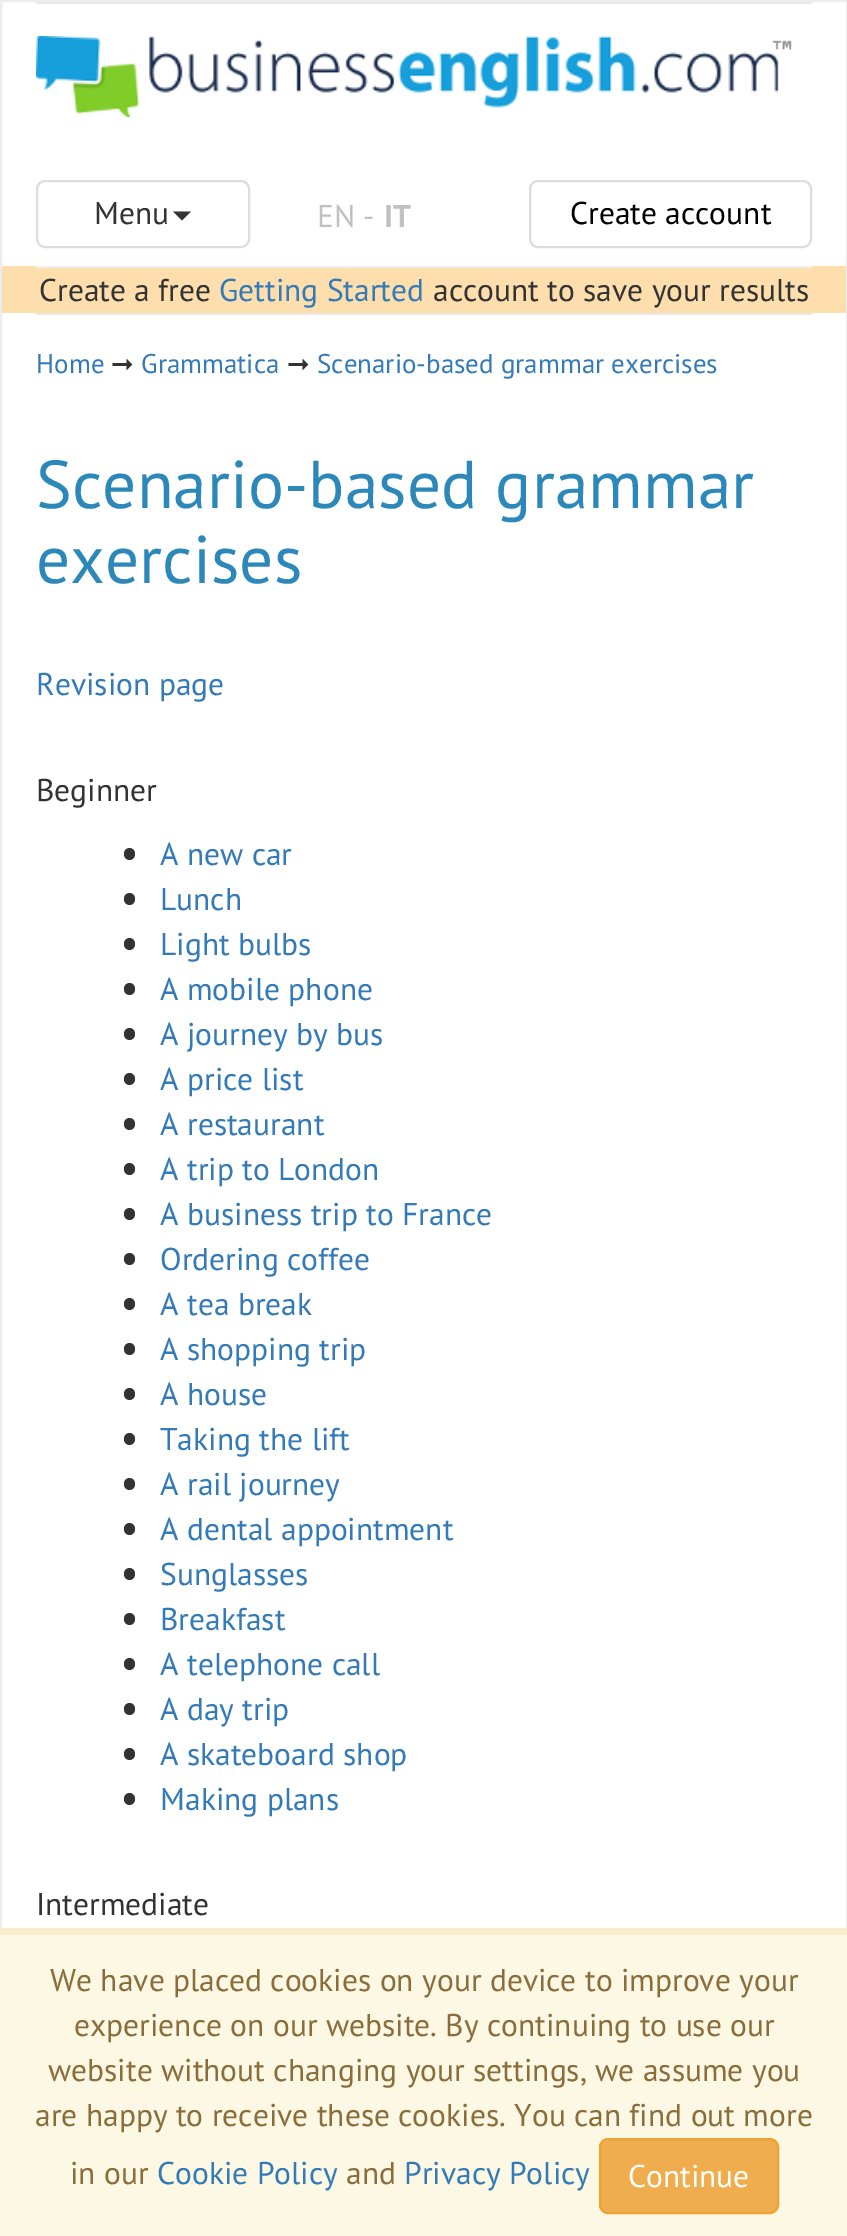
%!PS
<< /PageSize [847 2236] >> setpagedevice
/rgb { dup -16 bitshift 255 div exch dup -8 bitshift 255 and 255 div exch 255 and 255 div setrgbcolor } def
/font { [ exch dup neg 0 0 3 -1 roll 0 0 ] selectfont } def
/text { moveto show } def
/roundrect { 5 dict begin { /r /h /w /y /x } { exch def } forall
  x r add y moveto x w add y 2 copy h add r arct x w add y h add x 1 index r arct
  x y h add x y r arct x y 2 copy exch w add exch r arct closepath end } def
/picture { 5 dict begin { /h /w /y /x /name } { exch def } forall
  gsave x y translate w h scale
  w h 8 [w 0 0 h 0 0] name (r) file false 3 colorimage grestore end } def
0 2236 translate 1 -1 scale
4 setmiterlimit
/s1 { /PTSans-Regular 31.5 font 16#333333 rgb } def
/s2 { /PTSans-Regular 31.5 font 16#C0C0C0 rgb } def
/s3 { /PTSans-Bold 31.5 font 16#C0C0C0 rgb } def
/s4 { /PTSans-Regular 31.5 font 16#000000 rgb } def
/s5 { /PTSans-Regular 31.5 font 16#337AB7 rgb } def
/s6 { /PTSans-Regular 27 font 16#337AB7 rgb } def
/s7 { /DejaVuSans-Regular 27 font 16#333333 rgb } def
/s8 { /PTSans-Regular 67.5 font 16#2C88B9 rgb } def
/s9 { /PTSans-Regular 31.5 font 16#8A6D3B rgb } def
/s10 { /PTSans-Regular 31.5 font 16#FFFFFF rgb } def
16#FFFFFF rgb
0 0 847 2236 rectfill
16#EDEDED rgb
2 setlinewidth
1 1 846 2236 rectstroke
16#E7E7E7 rgb
36 2 776 2 rectfill
36 313 776 2 rectfill
(pic1.raw) 36 36 756 81 picture
16#DDDDDD rgb
37 181 212 66 8 roundrect stroke
s1
(Menu) 94 224 text
173 211.5 moveto 191 211.5 lineto 182 220.5 lineto closepath fill
s2
(EN -) 317 227 text
s3
(IT) 384 227 text
16#DDDDDD rgb
530 181 281 66 8 roundrect stroke
s4
(Create account) 570 224 text
16#FFDEAD rgb
2 266 844 47 rectfill
16#EEEEEE rgb
36 266 776 2 rectfill
s1
(Create a free) 39 301 text
s5
(Getting Started) 219 301 text
s1
(account to save your results) 433 301 text
s6
(Home) 36 373 text
s7
(➞) 111 373 text
s6
(Grammatica) 141 373 text
s7
(➞) 287 373 text
s6
(Scenario-based grammar exercises) 317 373 text
s8
(Scenario-based grammar) 36 508 text
(exercises) 36 583 text
s5
(Revision page) 36 695 text
s1
(Beginner) 36 801 text
124 848 11 12 5.5 roundrect fill
s5
(A new car) 160 865 text
16#333333 rgb
124 893 11 12 5.5 roundrect fill
s5
(Lunch) 160 910 text
16#333333 rgb
124 938 11 12 5.5 roundrect fill
s5
(Light bulbs) 160 955 text
16#333333 rgb
124 983 11 12 5.5 roundrect fill
s5
(A mobile phone) 160 1000 text
16#333333 rgb
124 1028 11 12 5.5 roundrect fill
s5
(A journey by bus) 160 1045 text
16#333333 rgb
124 1073 11 12 5.5 roundrect fill
s5
(A price list) 160 1090 text
16#333333 rgb
124 1118 11 12 5.5 roundrect fill
s5
(A restaurant) 160 1135 text
16#333333 rgb
124 1163 11 12 5.5 roundrect fill
s5
(A trip to London) 160 1180 text
16#333333 rgb
124 1208 11 12 5.5 roundrect fill
s5
(A business trip to France) 160 1225 text
16#333333 rgb
124 1253 11 12 5.5 roundrect fill
s5
(Ordering coffee) 160 1270 text
16#333333 rgb
124 1298 11 12 5.5 roundrect fill
s5
(A tea break) 160 1315 text
16#333333 rgb
124 1343 11 12 5.5 roundrect fill
s5
(A shopping trip) 160 1360 text
16#333333 rgb
124 1388 11 12 5.5 roundrect fill
s5
(A house) 160 1405 text
16#333333 rgb
124 1433 11 12 5.5 roundrect fill
s5
(Taking the lift) 160 1450 text
16#333333 rgb
124 1478 11 12 5.5 roundrect fill
s5
(A rail journey) 160 1495 text
16#333333 rgb
124 1523 11 12 5.5 roundrect fill
s5
(A dental appointment) 160 1540 text
16#333333 rgb
124 1568 11 12 5.5 roundrect fill
s5
(Sunglasses) 160 1585 text
16#333333 rgb
124 1613 11 12 5.5 roundrect fill
s5
(Breakfast) 160 1630 text
16#333333 rgb
124 1658 11 12 5.5 roundrect fill
s5
(A telephone call) 160 1675 text
16#333333 rgb
124 1703 11 12 5.5 roundrect fill
s5
(A day trip) 160 1720 text
16#333333 rgb
124 1748 11 12 5.5 roundrect fill
s5
(A skateboard shop) 160 1765 text
16#333333 rgb
124 1793 11 12 5.5 roundrect fill
s5
(Making plans) 160 1810 text
s1
(Intermediate) 36 1915 text
16#FCF8E3 rgb
0 1935 847 301 rectfill
16#FAEBCC rgb
0 1928 847 7 rectfill
s9
(We have placed cookies on your device to improve your) 50 1991 text
(experience on our website. By continuing to use our) 74 2036 text
(website without changing your settings, we assume you) 48 2081 text
(are happy to receive these cookies. You can find out more) 35 2126 text
(in our) 70 2184 text
s5
(Cookie Policy) 157 2184 text
s9
(and) 346 2184 text
s5
(Privacy Policy) 404 2184 text
16#F0AD4E rgb
600 2139 178 74 8 roundrect gsave fill grestore
16#EEA236 rgb
stroke
s10
(Continue) 628 2187 text
showpage
